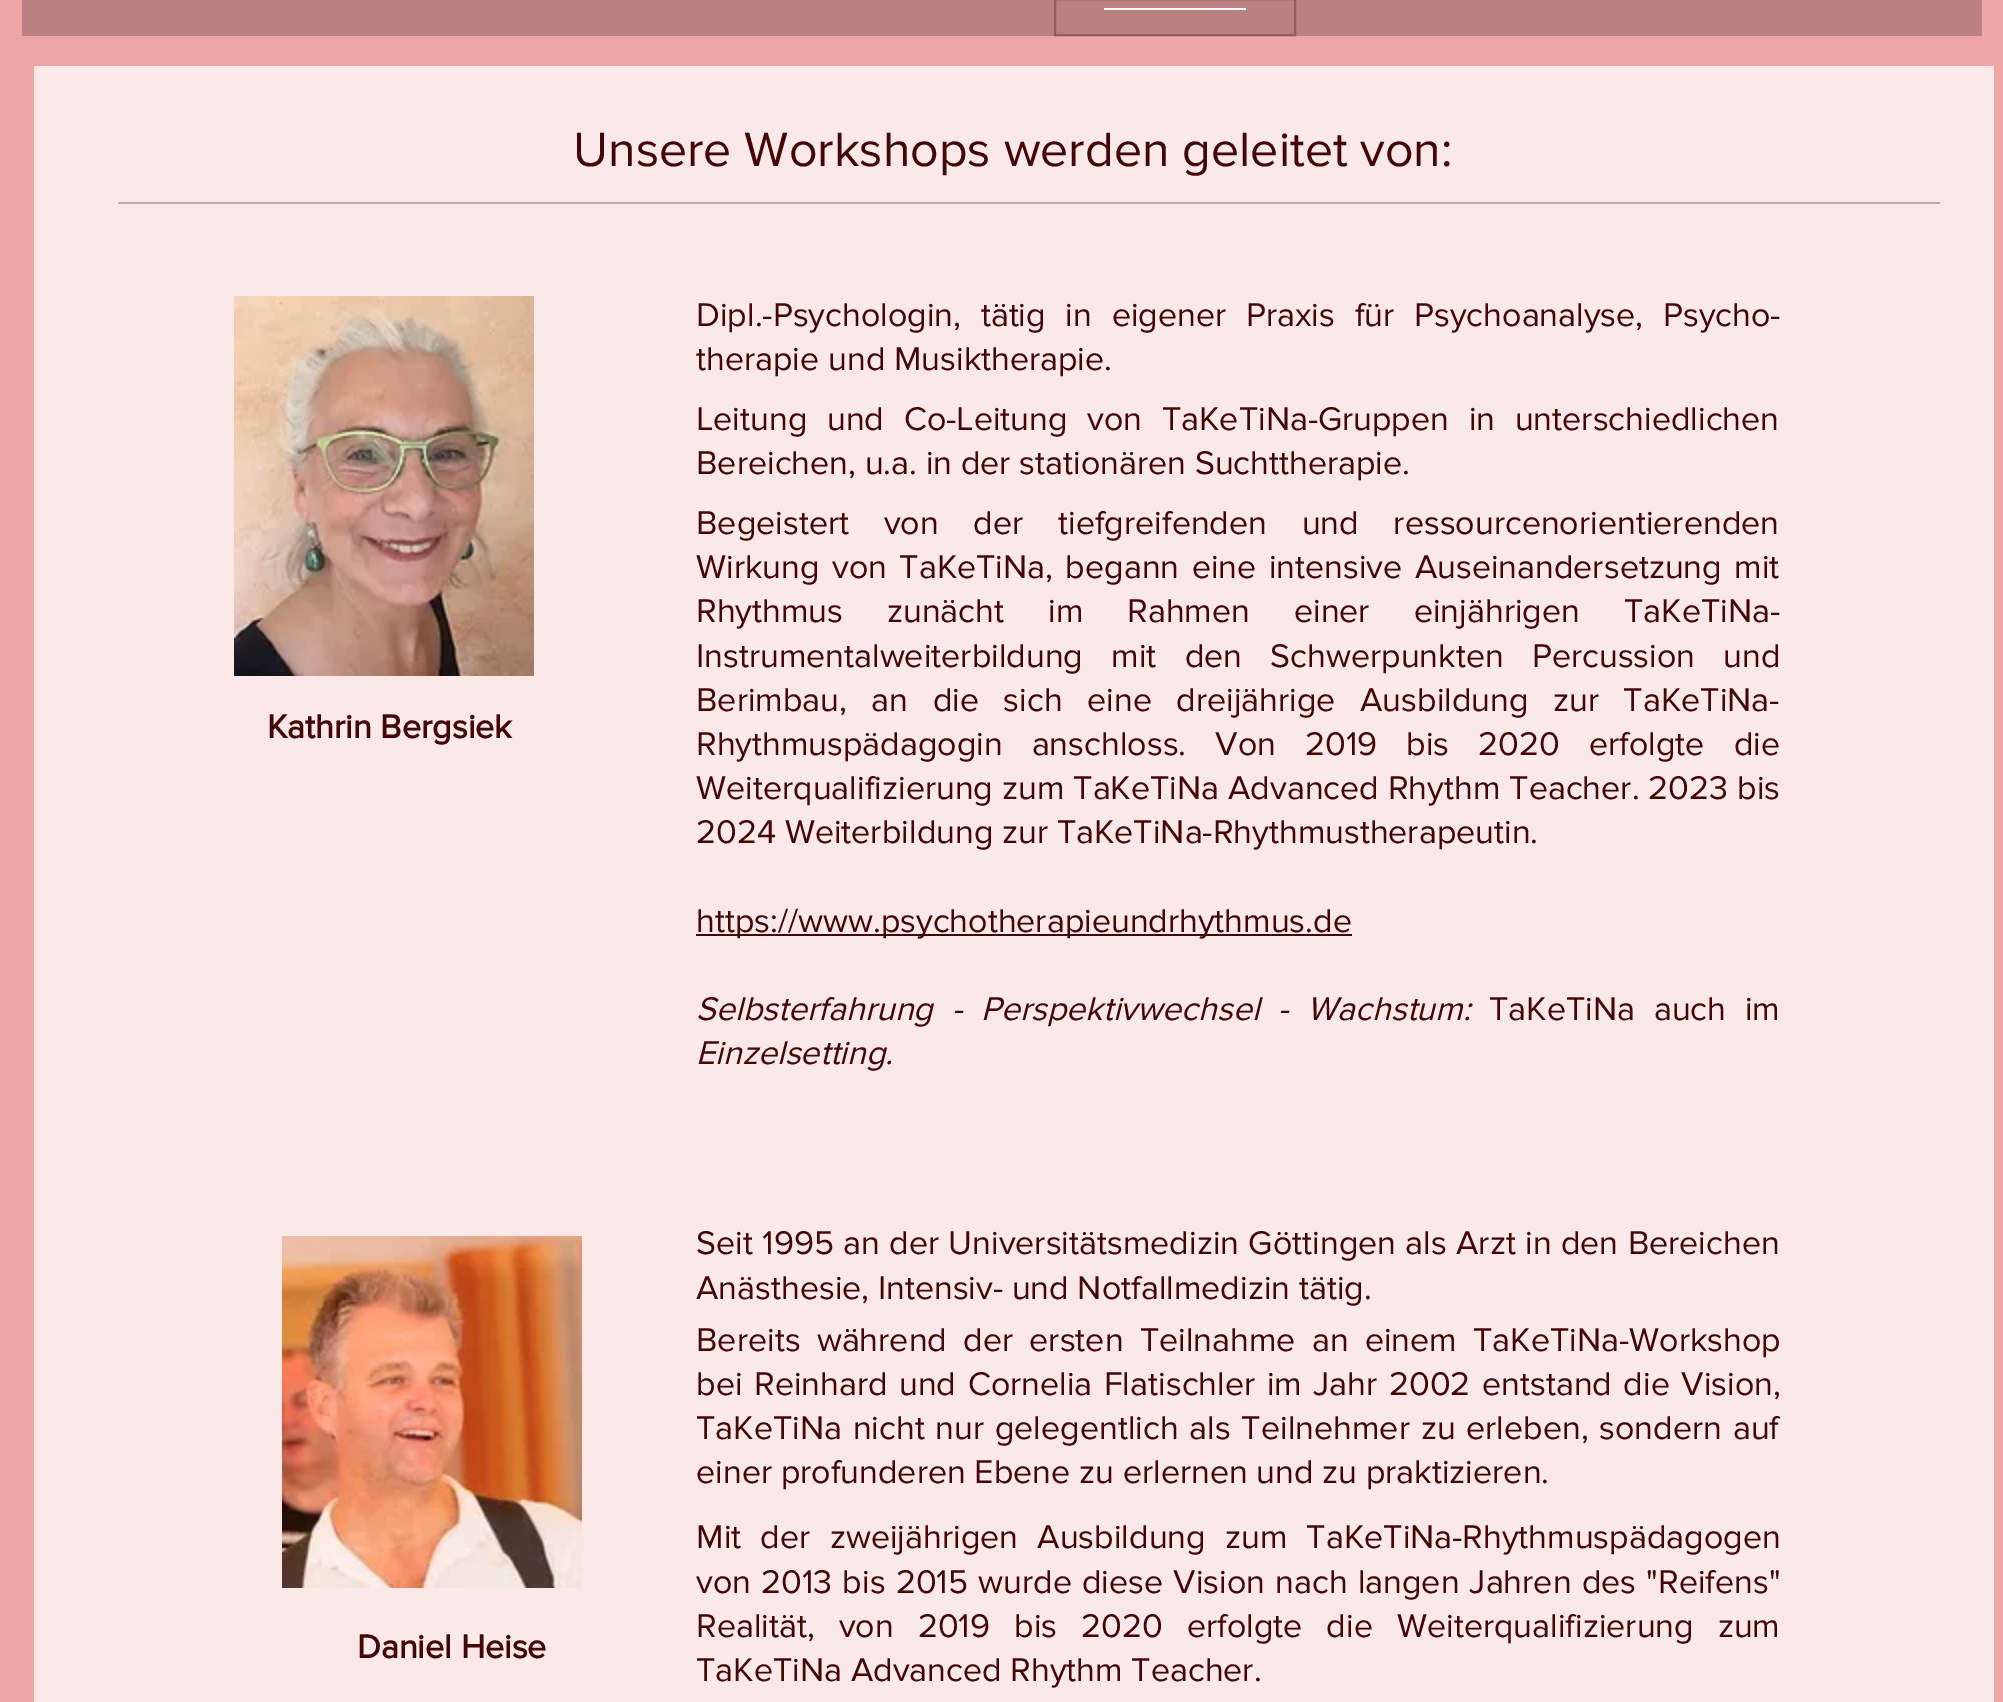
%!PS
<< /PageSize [2003 1702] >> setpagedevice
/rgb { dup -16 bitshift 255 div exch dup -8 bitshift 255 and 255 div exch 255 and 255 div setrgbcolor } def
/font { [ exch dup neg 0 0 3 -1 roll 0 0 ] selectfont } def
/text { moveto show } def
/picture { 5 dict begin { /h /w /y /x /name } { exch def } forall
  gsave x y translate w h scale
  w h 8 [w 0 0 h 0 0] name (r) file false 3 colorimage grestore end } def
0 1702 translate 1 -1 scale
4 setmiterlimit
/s1 { /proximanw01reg-Regular 50 font 16#440506 rgb } def
/s2 { /proximanw01reg-Regular 34 font 16#440506 rgb } def
/s3 { /proximanw01reg-Italic 34 font 16#440506 rgb } def
/s4 { /proximanw01reg-Bold 34 font 16#440506 rgb } def
16#EDA5A6 rgb
0 0 2003 1702 rectfill
16#B98181 rgb
22 0 1960 36 rectfill
16#965C5C rgb
2 setlinewidth
1055 -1 240 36 rectstroke
16#FFFFFF rgb
1104 8 142 2 rectfill
16#FBE8E8 rgb
34 66 1960 1636 rectfill
s1
(Unsere Workshops werden geleitet von:) 573 166 text
16#BAAEAE rgb
118 202 1822 2 rectfill
(pic1.raw) 234 296 300 380 picture
/proximanw01reg-Regular 34 font
16#440506 rgb
696 326 moveto 11 0 32 (Dipl.-Psychologin, tätig in eigener Praxis für Psychoanalyse, Psycho-) widthshow
(therapie und Musiktherapie.) 696 370 text
696 430 moveto 11 0 32 (Leitung und Co-Leitung von TaKeTiNa-Gruppen in unterschiedlichen) widthshow
(Bereichen, u.a. in der stationären Suchttherapie.) 696 474 text
696 534 moveto 26 0 32 (Begeistert von der tiefgreifenden und ressourcenorientierenden) widthshow
696 578 moveto 3.75 0 32 (Wirkung von TaKeTiNa, begann eine intensive Auseinandersetzung mit) widthshow
696 622 moveto 35.25 0 32 (Rhythmus zunächt im Rahmen einer einjährigen TaKeTiNa-) widthshow
696 667 moveto 19.5 0 32 (Instrumentalweiterbildung mit den Schwerpunkten Percussion und) widthshow
696 711 moveto 15.75 0 32 (Berimbau, an die sich eine dreijährige Ausbildung zur TaKeTiNa-) widthshow
696 755 moveto 20.25 0 32 (Rhythmuspädagogin anschloss. Von 2019 bis 2020 erfolgte die) widthshow
696 799 moveto 0.25 0 32 (Weiterqualifizierung zum TaKeTiNa Advanced Rhythm Teacher. 2023 bis) widthshow
(2024 Weiterbildung zur TaKeTiNa-Rhythmustherapeutin.) 696 843 text
696 934 656 2 rectfill
(https://www.psychotherapieundrhythmus.de) 696 932 text
/proximanw01reg-Italic 34 font
696 1020 moveto 10 0 32 (Selbsterfahrung - Perspektivwechsel - Wachstum:) widthshow
/proximanw01reg-Regular 34 font
1489 1020 moveto 10 0 32 (TaKeTiNa auch im) widthshow
s3
(Einzelsetting.) 696 1064 text
s4
(Kathrin Bergsiek) 267 738 text
(pic2.raw) 282 1236 300 352 picture
/proximanw01reg-Regular 34 font
696 1254 moveto 0.6 0 32 (Seit 1995 an der Universitätsmedizin Göttingen als Arzt in den Bereichen) widthshow
(Anästhesie, Intensiv- und Notfallmedizin tätig.) 696 1299 text
696 1351 moveto 7.5 0 32 (Bereits während der ersten Teilnahme an einem TaKeTiNa-Workshop) widthshow
696 1395 moveto 2.75 0 32 (bei Reinhard und Cornelia Flatischler im Jahr 2002 entstand die Vision,) widthshow
696 1439 moveto 2 0 32 (TaKeTiNa nicht nur gelegentlich als Teilnehmer zu erleben, sondern auf) widthshow
(einer profunderen Ebene zu erlernen und zu praktizieren.) 696 1483 text
696 1548 moveto 10.5 0 32 (Mit der zweijährigen Ausbildung zum TaKeTiNa-Rhythmuspädagogen) widthshow
696 1593 moveto 1.4 0 32 (von 2013 bis 2015 wurde diese Vision nach langen Jahren des "Reifens") widthshow
696 1637 moveto 15.25 0 32 (Realität, von 2019 bis 2020 erfolgte die Weiterqualifizierung zum) widthshow
(TaKeTiNa Advanced Rhythm Teacher.) 696 1681 text
s4
(Daniel Heise) 357 1658 text
showpage
